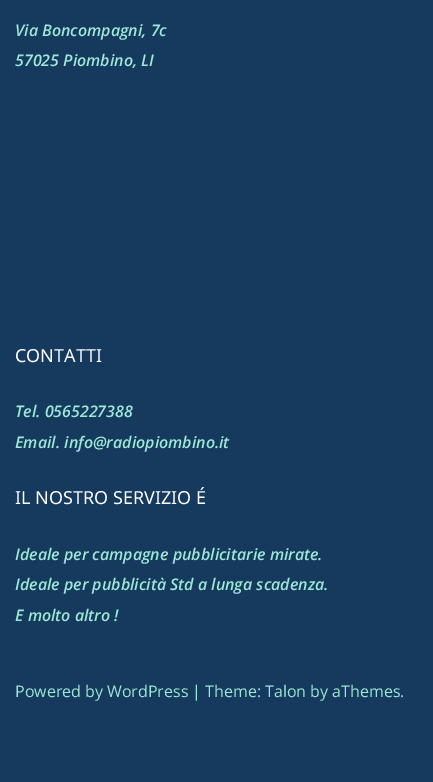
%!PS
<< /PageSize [433 782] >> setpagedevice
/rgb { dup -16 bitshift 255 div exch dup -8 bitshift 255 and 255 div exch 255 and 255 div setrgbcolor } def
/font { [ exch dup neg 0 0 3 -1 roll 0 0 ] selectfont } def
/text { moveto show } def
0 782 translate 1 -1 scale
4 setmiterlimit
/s1 { /OpenSans-SemiBoldItalic 16 font 16#9DE8D6 rgb } def
/s2 { /NotoSans-Regular 18 font 16#FFFFFF rgb } def
/s3 { /OpenSans-Regular 16 font 16#9DE8D6 rgb } def
16#153A5E rgb
0 0 433 782 rectfill
s1
(Via Boncompagni, 7c) 15 36 text
(57025 Piombino, LI) 15 66 text
s2
(CONTATTI) 15 362 text
s1
(Tel. 0565227388) 15 417 text
(Email. info@radiopiombino.it) 15 448 text
s2
(IL NOSTRO SERVIZIO É) 15 504 text
s1
(Ideale per campagne pubblicitarie mirate.) 15 560 text
(Ideale per pubblicità Std a lunga scadenza.) 15 590 text
(E molto altro !) 15 621 text
s3
(Powered by WordPress | Theme: Talon by aThemes.) 15 697 text
showpage
